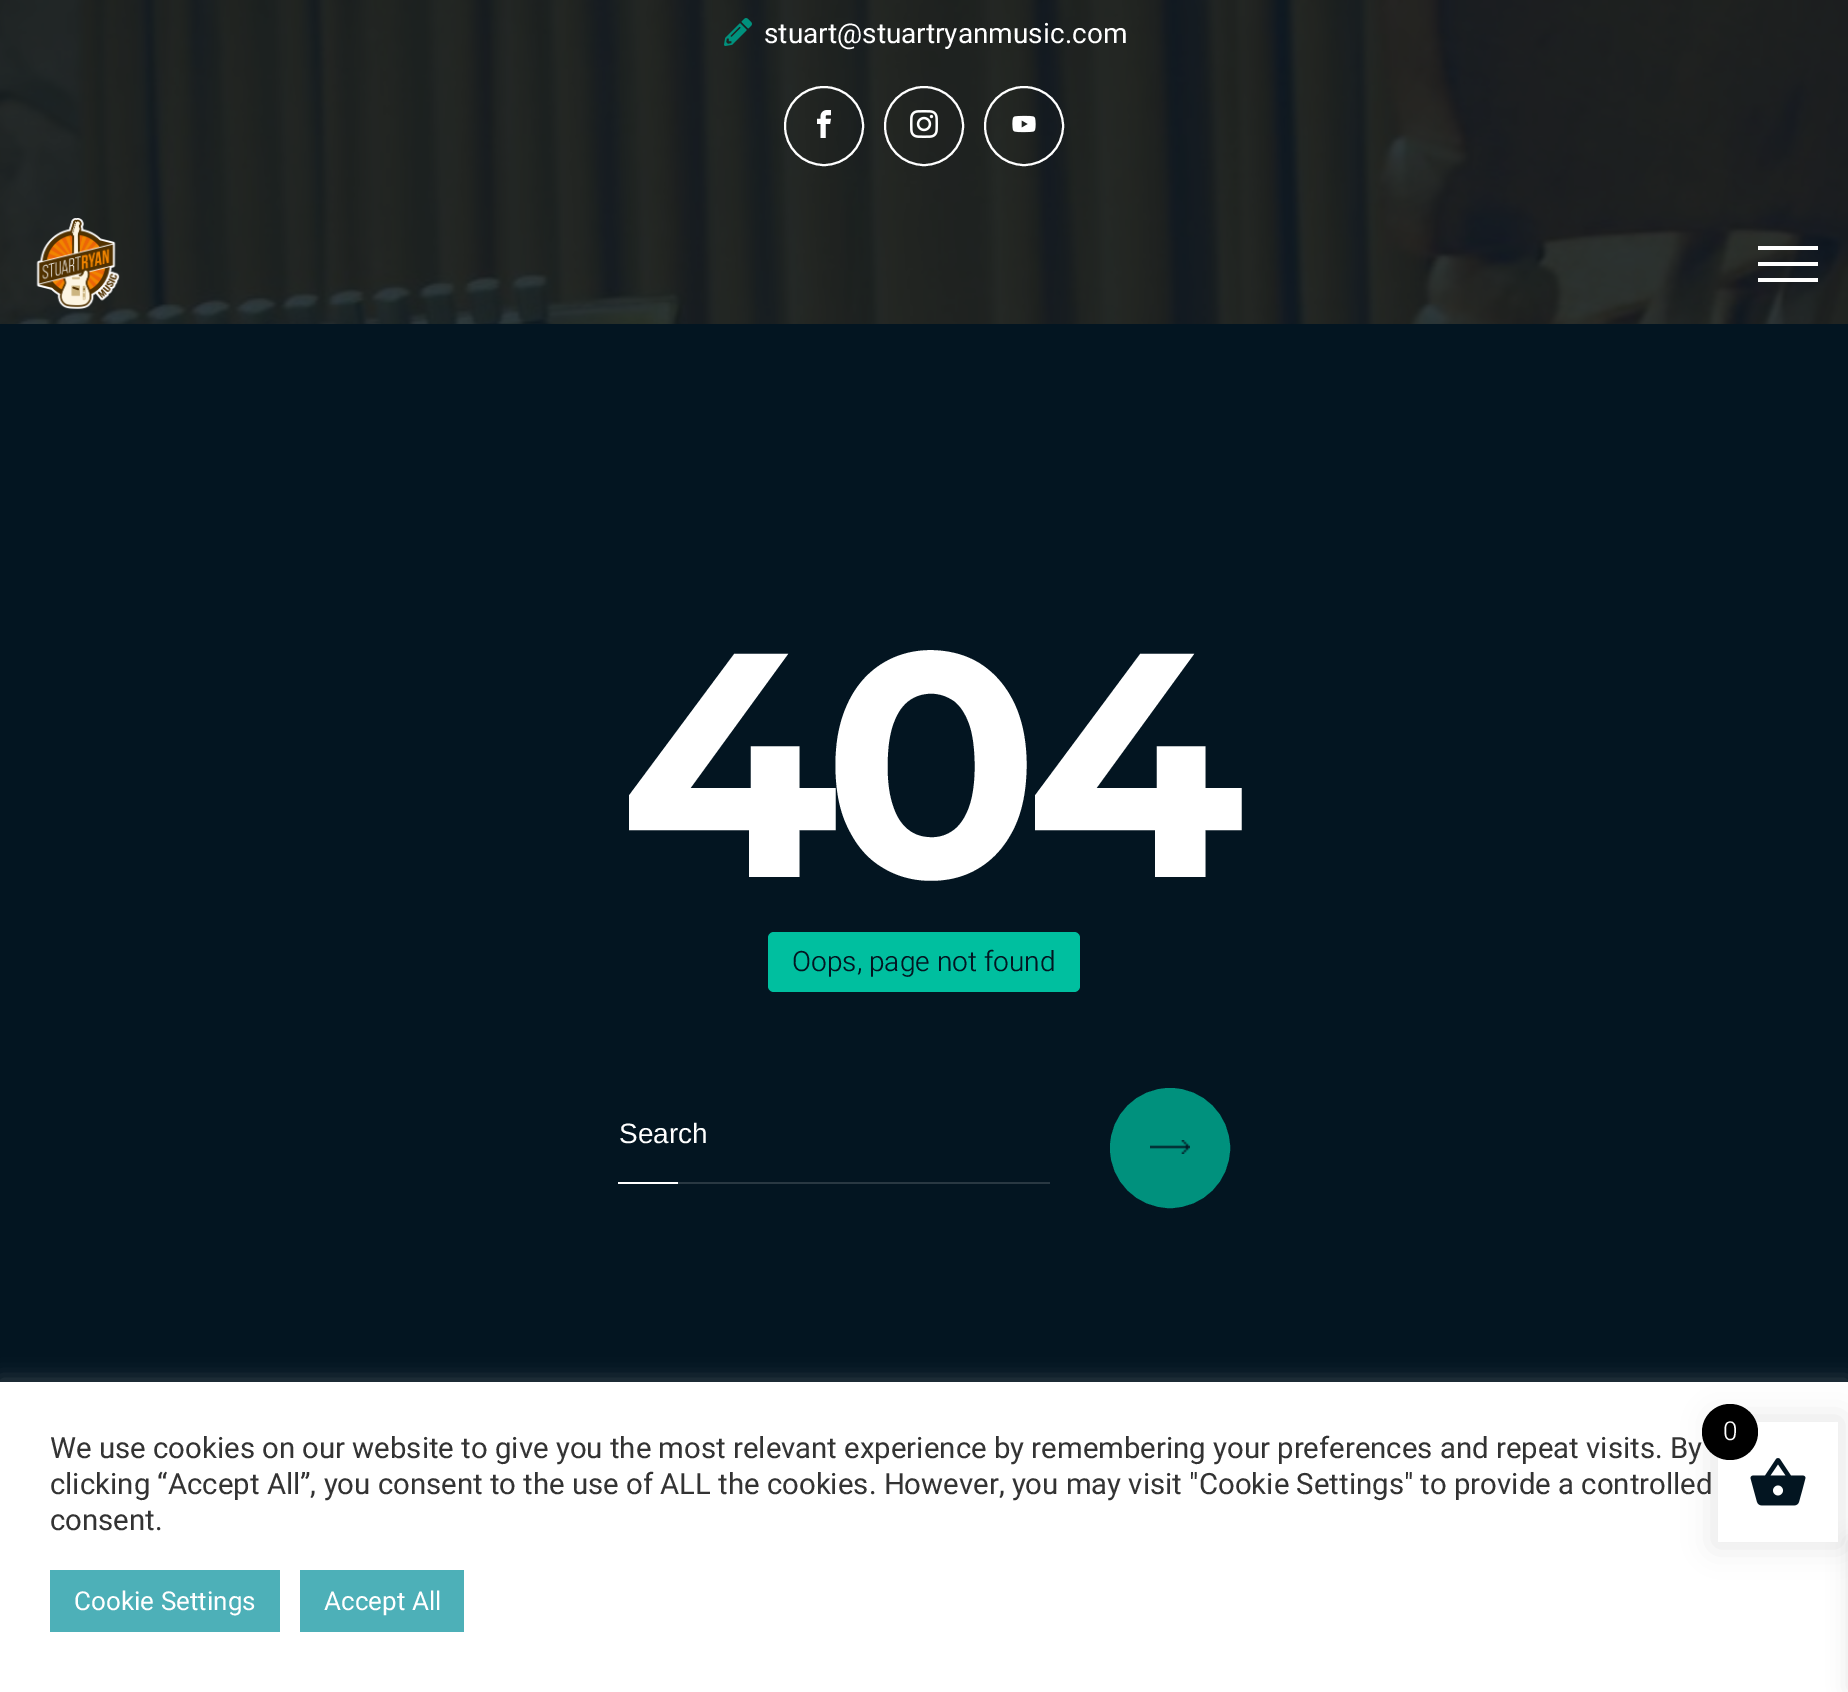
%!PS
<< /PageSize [1848 1692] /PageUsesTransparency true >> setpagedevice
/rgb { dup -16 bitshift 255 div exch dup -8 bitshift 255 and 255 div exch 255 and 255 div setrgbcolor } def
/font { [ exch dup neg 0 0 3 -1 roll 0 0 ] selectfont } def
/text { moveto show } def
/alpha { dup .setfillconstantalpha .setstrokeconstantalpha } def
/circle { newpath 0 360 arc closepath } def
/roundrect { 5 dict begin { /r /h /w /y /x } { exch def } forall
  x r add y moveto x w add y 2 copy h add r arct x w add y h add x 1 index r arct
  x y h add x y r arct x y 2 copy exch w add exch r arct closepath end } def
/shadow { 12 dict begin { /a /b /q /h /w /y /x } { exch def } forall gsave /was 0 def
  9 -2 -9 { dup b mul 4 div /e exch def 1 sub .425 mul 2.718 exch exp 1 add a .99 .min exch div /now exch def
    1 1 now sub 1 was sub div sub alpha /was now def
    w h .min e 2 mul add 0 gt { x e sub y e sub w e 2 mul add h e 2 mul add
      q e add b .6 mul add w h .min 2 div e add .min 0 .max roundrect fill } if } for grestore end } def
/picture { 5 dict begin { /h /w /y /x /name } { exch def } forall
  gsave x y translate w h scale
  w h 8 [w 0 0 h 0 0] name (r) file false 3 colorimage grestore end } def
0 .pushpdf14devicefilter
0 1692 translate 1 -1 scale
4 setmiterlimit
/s1 { /Heebo-Regular 28 font 16#FFFFFF rgb } def
/s2 { /Heebo-Light 28 font 16#031521 rgb } def
/s3 { /LiberationSans-Regular 28 font 16#FFFFFF rgb } def
/s4 { /Heebo-Light 26 font 16#FFFFFF rgb } def
/s5 { /Heebo-Regular 29.33 font 16#333333 rgb } def
/s6 { /Heebo-Regular 26 font 16#FFFFFF rgb } def
16#FFFFFF rgb
0 0 1848 1692 rectfill
(pic1.raw) 0 0 1848 324 picture
(pic2.raw) 724 18 28 28 picture
s1
(stuart@stuartryanmusic.com) 764 43 text
2 setlinewidth
824 126 39 circle stroke
(pic3.raw) 817 110 14 28 picture
924 126 39 circle stroke
(pic4.raw) 910 110 28 28 picture
1024 126 39 circle stroke
(pic5.raw) 1012 115 24 18 picture
(pic6.raw) 36 218 84 92 picture
1758 262 60 4 rectfill
1758 246 60 4 rectfill
1758 278 60 4 rectfill
16#031521 rgb
0 324 1848 1058 rectfill
/Montserrat-Bold 320 font
16#FFFFFF rgb
619 877 moveto -16 0 (404) ashow
16#00BF9F rgb
768 932 312 60 6 roundrect fill
s2
(Oops, page not found) 792 971 text
16#293842 rgb
678 1182 372 2 rectfill
s3
(Search) 619 1143 text
16#00917D rgb
1170 1148 59 circle gsave fill grestore
stroke
(pic7.raw) 1150 1140 40 14 picture
16#FFFFFF rgb
618 1182 60 2 rectfill
16#ACABAB rgb
0 1380 1848 310 0 10 0.3 shadow
16#FFFFFF rgb
0 1382 1848 310 rectfill
16#000000 rgb
1714 1418 128 128 0 15 0.1 shadow
1848 1540 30 150 0 10 0.1 shadow
16#FFFFFF rgb
1718 1422 120 120 rectfill
(pic8.raw) 1750 1458 56 48 picture
16#000000 rgb
1730 1432 28 circle fill
s4
(0) 1723 1440 text
s5
(We use cookies on our website to give you the most relevant experience by remembering your preferences and repeat visits. By) 50 1458 text
(clicking “Accept All”, you consent to the use of ALL the cookies. However, you may visit "Cookie Settings" to provide a controlled) 50 1494 text
(consent.) 50 1530 text
16#4DB0B8 rgb
50 1570 230 62 rectfill
s6
(Cookie Settings) 74 1610 text
16#4DB0B8 rgb
300 1570 164 62 rectfill
s6
(Accept All) 324 1610 text
.poppdf14devicefilter showpage
